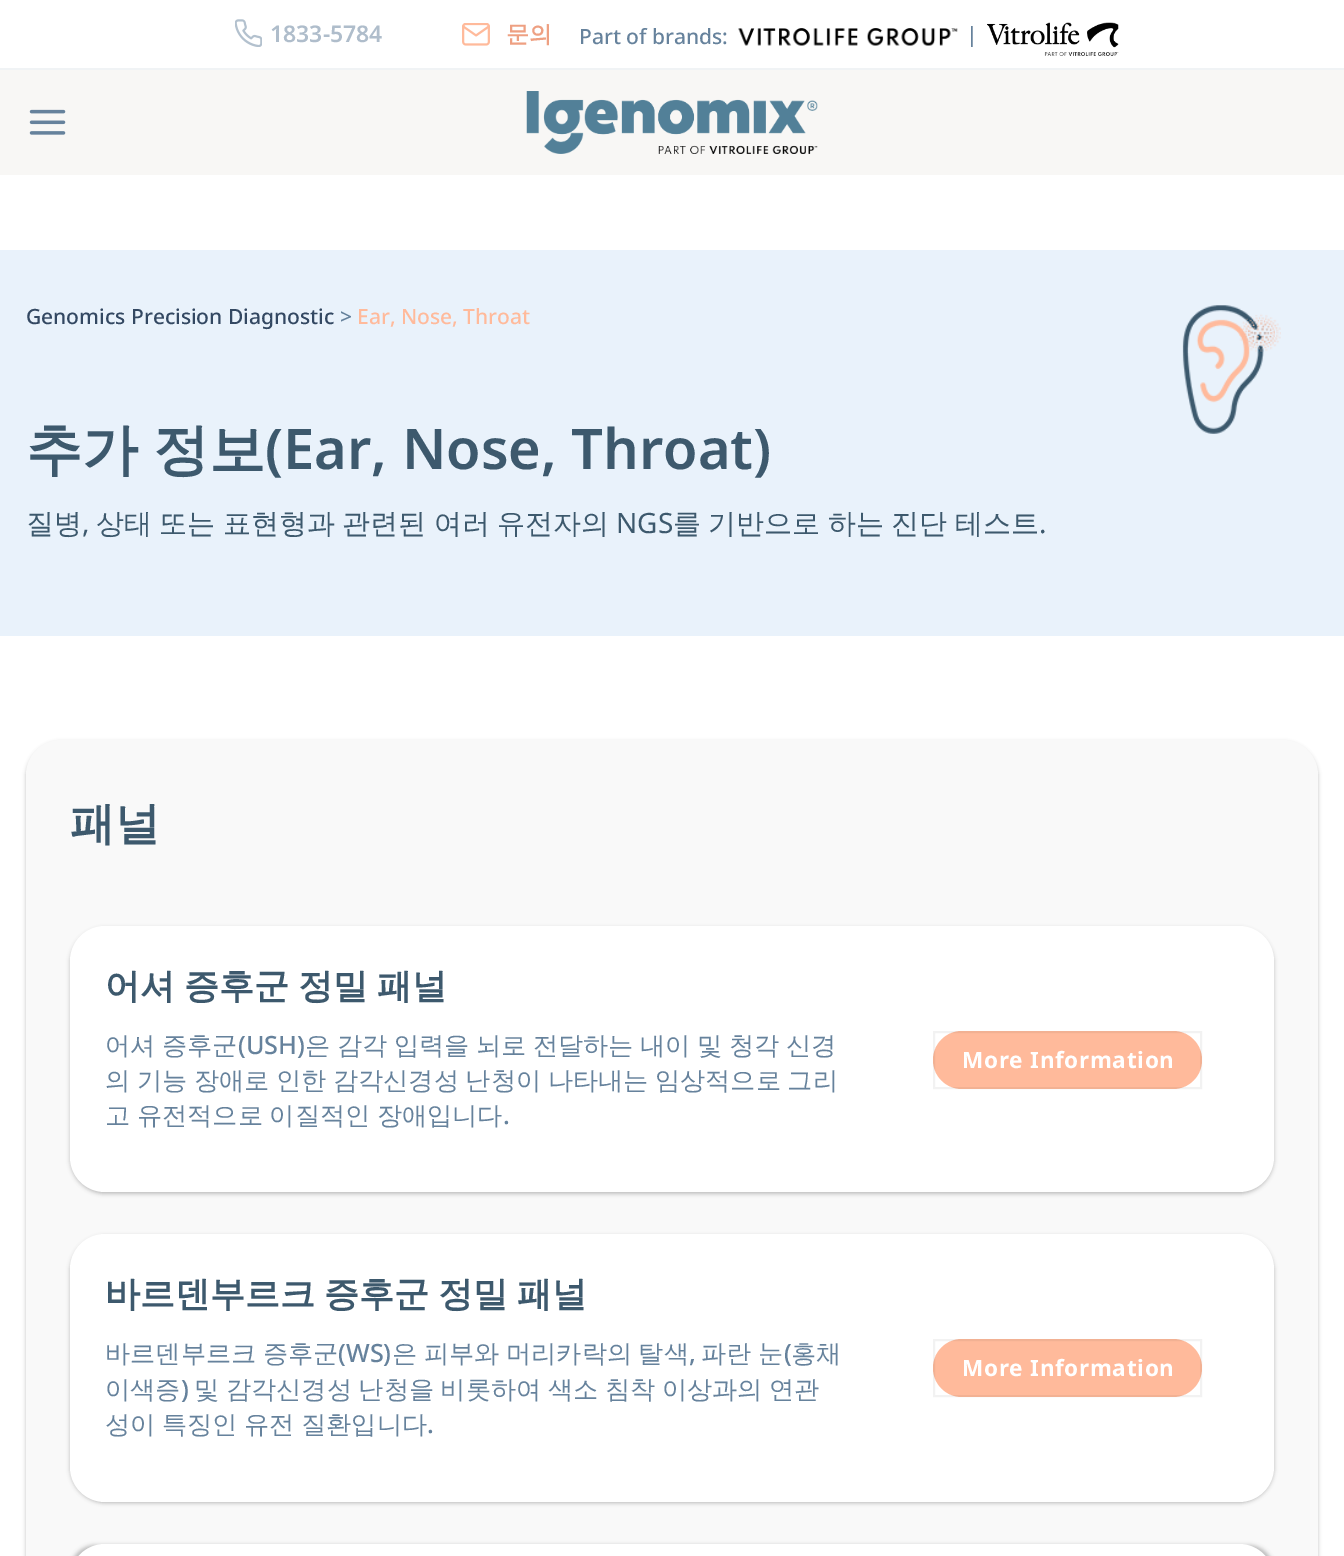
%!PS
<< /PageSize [1344 1556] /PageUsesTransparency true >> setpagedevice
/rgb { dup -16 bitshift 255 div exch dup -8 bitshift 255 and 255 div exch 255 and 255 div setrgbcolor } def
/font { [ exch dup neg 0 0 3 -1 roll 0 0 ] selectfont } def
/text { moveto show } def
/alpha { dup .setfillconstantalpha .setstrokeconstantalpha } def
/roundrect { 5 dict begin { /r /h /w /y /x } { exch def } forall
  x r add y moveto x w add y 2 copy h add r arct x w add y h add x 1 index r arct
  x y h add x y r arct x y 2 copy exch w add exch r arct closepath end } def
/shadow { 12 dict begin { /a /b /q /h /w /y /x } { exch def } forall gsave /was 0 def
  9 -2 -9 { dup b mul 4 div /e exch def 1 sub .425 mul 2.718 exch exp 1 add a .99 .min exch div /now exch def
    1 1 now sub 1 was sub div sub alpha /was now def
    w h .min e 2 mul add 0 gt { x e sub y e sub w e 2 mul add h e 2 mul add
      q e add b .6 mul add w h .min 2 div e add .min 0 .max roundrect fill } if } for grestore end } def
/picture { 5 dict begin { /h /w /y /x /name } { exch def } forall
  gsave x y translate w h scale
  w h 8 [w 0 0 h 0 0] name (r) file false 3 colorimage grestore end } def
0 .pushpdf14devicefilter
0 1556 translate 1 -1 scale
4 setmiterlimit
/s1 { /NotoSans-SemiBold 23 font 16#AFBDCB rgb } def
/s2 { /WenQuanYiZenHei-Bold 23 font 16#EEA082 rgb } def
/s3 { /NotoSans-Medium 21 font 16#66829C rgb } def
/s4 { /NotoSans-Medium 21 font 16#334862 rgb } def
/s5 { /NotoSans-Medium 21 font 16#FFBA9B rgb } def
/s6 { /WenQuanYiZenHei-Bold 56 font 16#3D596D rgb } def
/s7 { /NotoSans-SemiBold 56 font 16#3D596D rgb } def
/s8 { /WenQuanYiZenHei-Medium 28 font 16#3D596D rgb } def
/s9 { /NotoSans-Regular 28 font 16#3D596D rgb } def
/s10 { /WenQuanYiZenHei-Bold 45 font 16#3D596D rgb } def
/s11 { /NotoSans-Medium 25.2 font 16#66829C rgb } def
/s12 { /WenQuanYiZenHei-Medium 25.2 font 16#66829C rgb } def
16#FFFFFF rgb
0 0 1344 1556 rectfill
16#F0F3F5 rgb
0 68 1344 2 rectfill
(pic1.raw) 235 19 27 28 picture
s1
(1833-5784) 270 42 text
(pic2.raw) 462 23 28 23 picture
s2
(문의) 506 42 text
s3
(Part of brands:) 579 44 text
(pic3.raw) 738 28 220 18 picture
(|) 966 42 text
(pic4.raw) 987 22 132 34 picture
16#F8F7F5 rgb
0 70 1344 105 rectfill
(pic5.raw) 29 109 37 26 picture
(pic6.raw) 526 91 292 63 picture
16#E9F2FB rgb
0 250 1344 386 rectfill
s4
(Genomics Precision Diagnostic) 26 324 text
s3
(>) 340 324 text
s5
(Ear, Nose, Throat) 357 324 text
s6
(추가) 26 469 text
(정보) 153 469 text
s7
(\(Ear, Nose, Throat\)) 265 469 text
s8
(질병) 26 533 text
s9
(,) 82 533 text
/WenQuanYiZenHei-Medium 28 font
96 533 moveto -1 0 32 (상태 또는 표현형과 관련된 여러 유전자의) widthshow
s9
(NGS) 616 533 text
/WenQuanYiZenHei-Medium 28 font
673 533 moveto -1 0 32 (를 기반으로 하는 진단 테스트) widthshow
s9
(.) 1039 533 text
(pic7.raw) 1182 305 99 129 picture
16#000000 rgb
26 742 1292 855 35 2 0.24 shadow
16#F9F9F9 rgb
26 740 1292 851 35 roundrect fill
s10
(패널) 70 839 text
16#000000 rgb
70 928 1204 266 35 2 0.24 shadow
16#FFFFFF rgb
70 926 1204 266 35 roundrect fill
/WenQuanYiZenHei-Bold 35 font
16#3D596D rgb
105 998 moveto -1 0 32 (어셔 증후군) widthshow
298 998 moveto -1 0 32 (정밀 패널) widthshow
/WenQuanYiZenHei-Medium 25.2 font
16#66829C rgb
105 1054 moveto -1 0 32 (어셔 증후군) widthshow
s11
(\(USH\)) 238 1054 text
/WenQuanYiZenHei-Medium 25.2 font
305 1054 moveto -1 0 32 (은 감각 입력을 뇌로 전달하는 내이 및 청각 신경) widthshow
105 1089 moveto -1 0 32 (의 기능 장애로 인한 감각신경성 난청이 나타내는 임상적으로 그리) widthshow
105 1124 moveto -1 0 32 (고 유전적으로 이질적인 장애입니다) widthshow
s11
(.) 503 1124 text
16#FFBA9B rgb
933 1031 269 58 29 roundrect fill
0.05 alpha
16#000000 rgb
2 setlinewidth
934 1032 267 56 rectstroke
/NotoSans-Bold 22.5 font
1 alpha
16#FFFFFF rgb
962 1068 moveto 0.7 0 (More Information) ashow
16#000000 rgb
70 1236 1204 267 35 2 0.24 shadow
74 1239 1197 261 32 2.5 0.12 shadow
16#FFFFFF rgb
70 1234 1204 268 35 roundrect fill
/WenQuanYiZenHei-Bold 35 font
16#3D596D rgb
105 1306 moveto -1 0 32 (바르덴부르크 증후군) widthshow
438 1306 moveto -1 0 32 (정밀 패널) widthshow
/WenQuanYiZenHei-Medium 25.2 font
16#66829C rgb
105 1362 moveto -1 0 32 (바르덴부르크 증후군) widthshow
s11
(\(WS\)) 338 1362 text
/WenQuanYiZenHei-Medium 25.2 font
392 1362 moveto -1 0 32 (은 피부와 머리카락의 탈색) widthshow
s11
(,) 689 1362 text
/WenQuanYiZenHei-Medium 25.2 font
701 1362 moveto -1 0 32 (파란 눈) widthshow
s11
(\() 784 1362 text
s12
(홍채) 791 1362 text
(이색증) 105 1398 text
s11
(\)) 181 1398 text
/WenQuanYiZenHei-Medium 25.2 font
194 1398 moveto -1 0 32 (및 감각신경성 난청을 비롯하여 색소 침착 이상과의 연관) widthshow
105 1433 moveto -1 0 32 (성이 특징인 유전 질환입니다) widthshow
s11
(.) 427 1433 text
16#FFBA9B rgb
933 1339 269 58 29 roundrect fill
0.05 alpha
16#000000 rgb
934 1340 267 56 rectstroke
/NotoSans-Bold 22.5 font
1 alpha
16#FFFFFF rgb
962 1376 moveto 0.7 0 (More Information) ashow
16#000000 rgb
70 1545 1204 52 35 2 0.24 shadow
16#FFFFFF rgb
70 1544 1204 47 35 roundrect fill
.poppdf14devicefilter showpage
